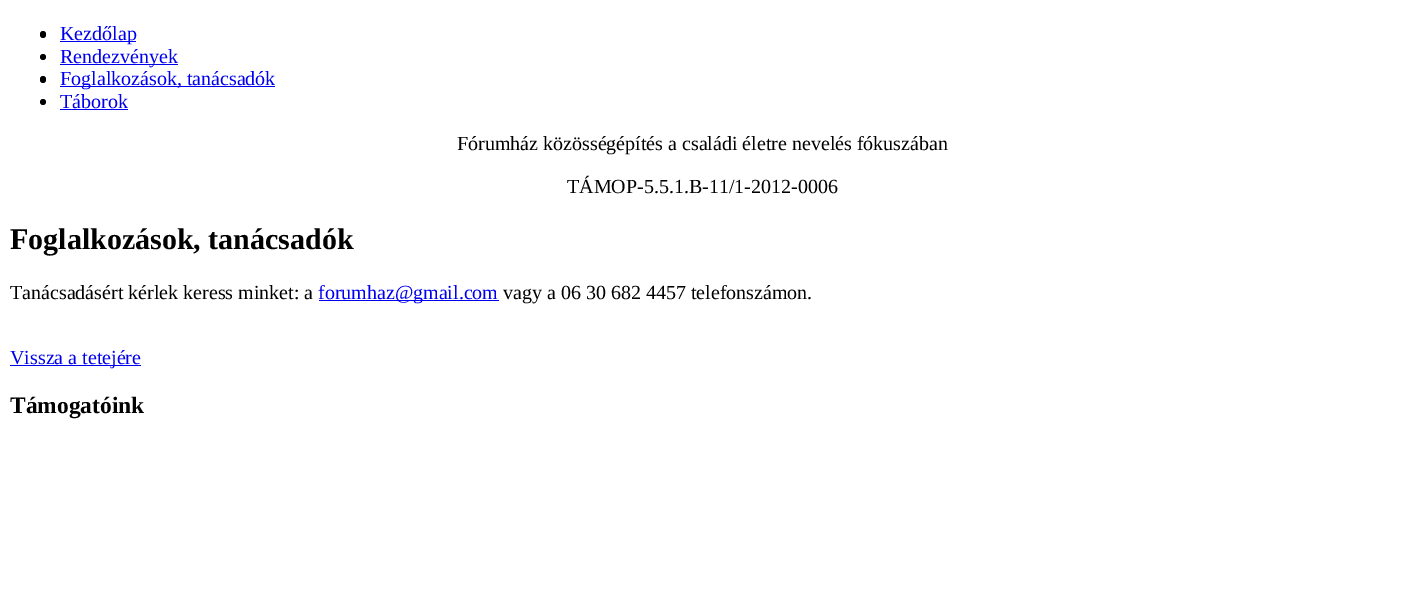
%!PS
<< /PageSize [1404 609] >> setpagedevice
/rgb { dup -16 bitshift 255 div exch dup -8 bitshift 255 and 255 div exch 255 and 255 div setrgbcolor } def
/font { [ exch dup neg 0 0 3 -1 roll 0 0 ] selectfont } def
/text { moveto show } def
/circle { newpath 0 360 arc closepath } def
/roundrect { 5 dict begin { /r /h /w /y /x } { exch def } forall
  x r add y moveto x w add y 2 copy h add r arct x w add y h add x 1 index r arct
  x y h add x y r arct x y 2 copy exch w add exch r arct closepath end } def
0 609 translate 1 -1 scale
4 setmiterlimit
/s1 { /LiberationSerif-Regular 20 font 16#0000EE rgb } def
/s2 { /LiberationSerif-Regular 20 font 16#000000 rgb } def
/s3 { /LiberationSerif-Bold 30 font 16#000000 rgb } def
/s4 { /LiberationSerif-Bold 23.5 font 16#000000 rgb } def
16#FFFFFF rgb
0 0 1404 609 rectfill
16#000000 rgb
40 31 6 7 3 roundrect fill
16#0000EE rgb
60 41 76 1 rectfill
s1
(Kezdőlap) 60 40 text
16#000000 rgb
43 57 3 circle fill
16#0000EE rgb
60 64 118 1 rectfill
(Rendezvények) 60 63 text
16#000000 rgb
40 76 6 7 3 roundrect fill
16#0000EE rgb
60 86 215 1 rectfill
(Foglalkozások, tanácsadók) 60 85 text
16#000000 rgb
43 102 3 circle fill
s1
(Táborok) 60 108 text
60 109 68 1 rectfill
s2
(Fórumház közösségépítés a családi életre nevelés fókuszában) 457 150 text
(TÁMOP-5.5.1.B-11/1-2012-0006) 567 193 text
s3
(Foglalkozások, tanácsadók) 10 249 text
s2
(Tanácsadásért kérlek keress minket: a) 10 299 text
16#0000EE rgb
319 300 180 1 rectfill
(forumhaz@gmail.com) 318 299 text
s2
(vagy a 06 30 682 4457 telefonszámon.) 503 299 text
16#0000EE rgb
10 365 131 1 rectfill
(Vissza a tetejére) 10 364 text
s4
(Támogatóink) 10 413 text
showpage
